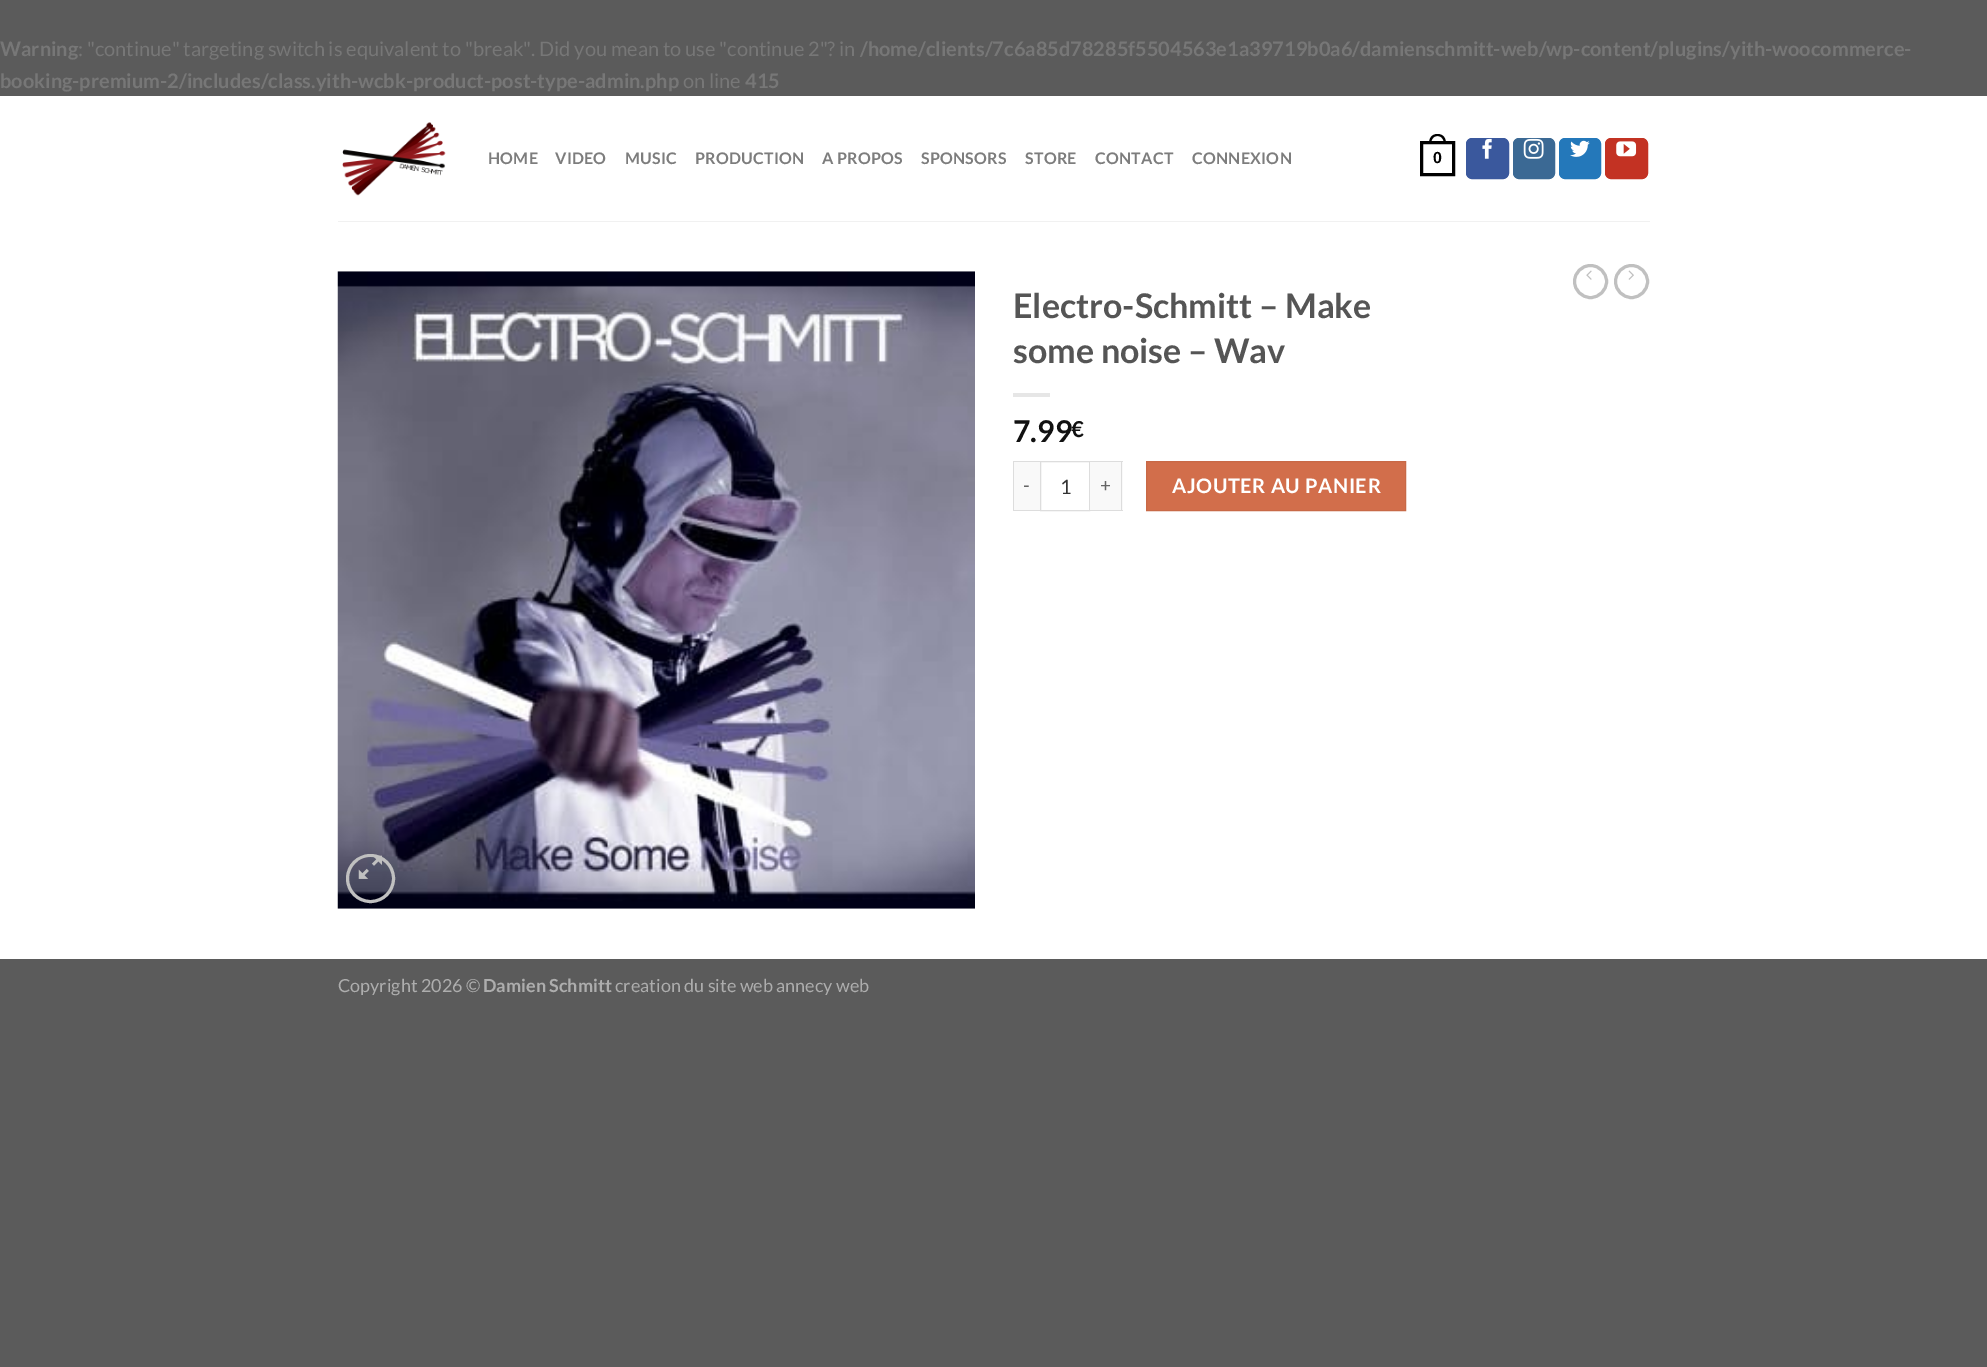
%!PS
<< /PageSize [1987 1367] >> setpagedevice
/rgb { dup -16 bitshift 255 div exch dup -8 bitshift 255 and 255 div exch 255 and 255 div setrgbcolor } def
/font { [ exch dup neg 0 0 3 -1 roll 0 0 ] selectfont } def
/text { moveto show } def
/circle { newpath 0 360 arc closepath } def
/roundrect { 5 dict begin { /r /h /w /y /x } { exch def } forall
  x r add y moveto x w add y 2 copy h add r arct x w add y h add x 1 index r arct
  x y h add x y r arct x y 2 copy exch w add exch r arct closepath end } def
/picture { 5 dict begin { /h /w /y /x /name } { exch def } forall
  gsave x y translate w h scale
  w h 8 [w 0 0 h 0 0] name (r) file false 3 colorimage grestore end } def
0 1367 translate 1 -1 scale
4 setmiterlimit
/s1 { /Lato-Bold 20 font 16#777777 rgb } def
/s2 { /Lato-Regular 20 font 16#777777 rgb } def
/s3 { /Lato-Bold 34 font 16#555555 rgb } def
/s4 { /Lato-Bold 30 font 16#111111 rgb } def
/s5 { /Lato-Bold 22 font 16#111111 rgb } def
/s6 { /Lato-Regular 20 font 16#333333 rgb } def
/s7 { /Lato-Regular 18 font 16#ADADAD rgb } def
/s8 { /Lato-Bold 18 font 16#ADADAD rgb } def
16#5B5B5B rgb
0 0 1987 1367 rectfill
s1
(Warning) 0 56 text
s2
(: "continue" targeting switch is equivalent to "break". Did you mean to use "continue 2"? in) 78 56 text
s1
(/home/clients/7c6a85d78285f5504563e1a39719b0a6/damienschmitt-web/wp-content/plugins/yith-woocommerce-) 860 56 text
(booking-premium-2/includes/class.yith-wcbk-product-post-type-admin.php) 0 88 text
s2
(on line) 683 88 text
s1
(415) 745 88 text
16#FFFFFF rgb
0 96 1987 863 rectfill
(pic1.raw) 342 122 104 74 picture
/Lato-Bold 16 font
16#7D7D7D rgb
488 164 moveto 0.25 0 (HOME) ashow
555 164 moveto 0.25 0 (VIDEO) ashow
625 164 moveto 0.25 0 (MUSIC) ashow
695 164 moveto 0.25 0 (PRODUCTION) ashow
822 164 moveto 0.25 0 (A PROPOS) ashow
921 164 moveto 0.25 0 (SPONSORS) ashow
1025 164 moveto 0.25 0 (STORE) ashow
1095 164 moveto 0.25 0 (CONTACT) ashow
1192 164 moveto 0.25 0 (CONNEXION) ashow
16#000000 rgb
3 setlinewidth
1421.5 142.5 32 32 rectstroke
1437.5 134 moveto 1443.5 134 1446 138.5 1446 144 curveto 1429 144 lineto 1429 138.5 1431.5 134 1437.5 134 curveto closepath 1437.5 136 moveto 1442 136 1444 140 1444 144 curveto 1431 144 lineto 1431 140 1433 136 1437.5 136 curveto closepath eofill
/LiberationSans-Bold 16 font
1433 163 moveto 0.25 0 (0) ashow
16#3A589D rgb
1466.5 138.5 42 40 5.5 roundrect gsave fill grestore
1 setlinewidth
stroke
(pic2.raw) 1482 138 10 21 picture
16#3B6994 rgb
1513.5 138.5 41 40 5.5 roundrect gsave fill grestore
stroke
(pic3.raw) 1523 138 21 21 picture
16#2478BA rgb
1559.5 138.5 41 40 5.5 roundrect gsave fill grestore
stroke
(pic4.raw) 1570 140 20 17 picture
16#C33223 rgb
1605.5 138.5 42 40 5.5 roundrect gsave fill grestore
stroke
(pic5.raw) 1616 141 21 16 picture
16#F1F1F1 rgb
338 221 1312 1 rectfill
(pic6.raw) 337 271 638 638 picture
16#C0C0C0 rgb
3 setlinewidth
370.5 878.5 23 circle stroke
(pic7.raw) 358 855 24 24 picture
s3
(Electro-Schmitt – Make) 1013 318 text
(some noise – Wav) 1013 363 text
16#E6E6E6 rgb
1013 393 37 4 rectfill
s4
(7.99) 1013 442 text
s5
(€) 1071 437 text
16#F9F9F9 rgb
1014 462 26 48 rectfill
16#DDDDDD rgb
1013 461 27 1 rectfill
1013 510 27 1 rectfill
1013 461 1 50 rectfill
/Lato-Regular 19 font
16#666666 rgb
1023 492 moveto 1 0 (-) ashow
16#DDDDDD rgb
1 setlinewidth
1040.5 461.5 49 49 rectstroke
s6
(1) 1060 494 text
16#F9F9F9 rgb
1090 462 33 48 rectfill
16#DDDDDD rgb
1090 461 33 1 rectfill
1121 461 1 50 rectfill
1090 510 33 1 rectfill
/Lato-Regular 19 font
16#666666 rgb
1100 492 moveto 1 0 (+) ashow
16#D26E4B rgb
1146.5 461.5 moveto 1405.5 461.5 lineto 1405.5 510.5 lineto 1146.5 510.5 lineto closepath gsave fill grestore
16#C86947 rgb
stroke
/Lato-Bold 20 font
16#FFFFFF rgb
1172 493 moveto 0.6 0 (AJOUTER AU PANIER) ashow
16#C0C0C0 rgb
3 setlinewidth
1590.5 281.5 16 circle stroke
(pic8.raw) 1586 270 6 10 picture
1631.5 281.5 16 circle stroke
(pic9.raw) 1628 270 6 10 picture
s7
(Copyright 2026 ©) 338 992 text
s8
(Damien Schmitt) 483 992 text
s7
(creation du site web annecy web) 615 992 text
showpage
